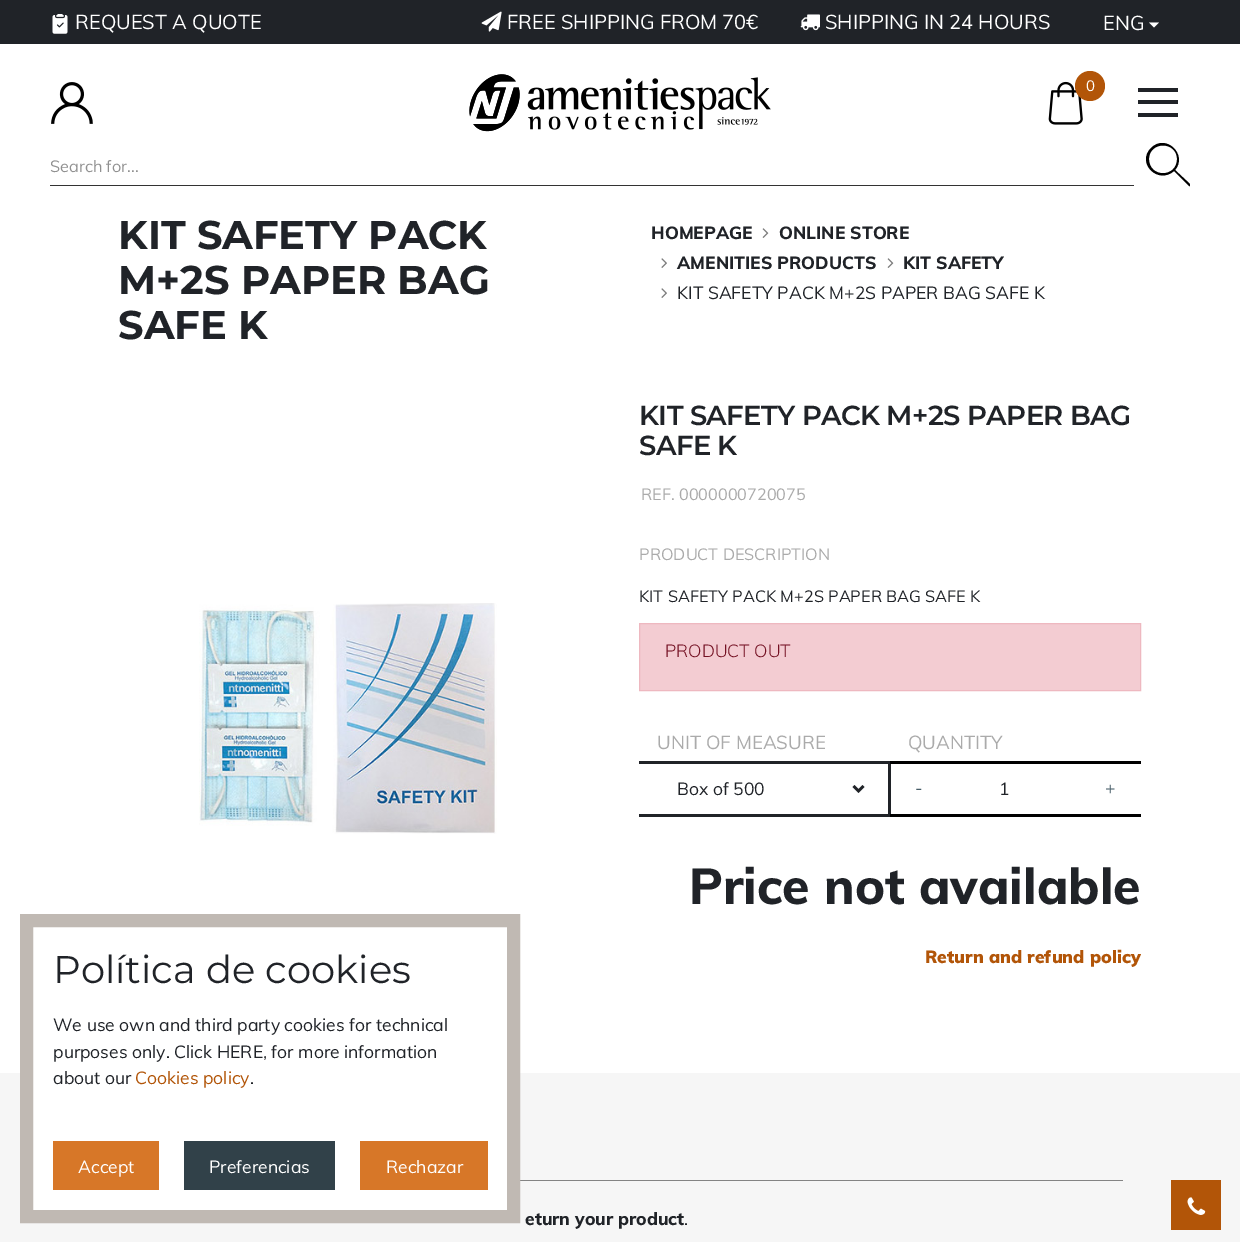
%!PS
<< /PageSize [1240 1242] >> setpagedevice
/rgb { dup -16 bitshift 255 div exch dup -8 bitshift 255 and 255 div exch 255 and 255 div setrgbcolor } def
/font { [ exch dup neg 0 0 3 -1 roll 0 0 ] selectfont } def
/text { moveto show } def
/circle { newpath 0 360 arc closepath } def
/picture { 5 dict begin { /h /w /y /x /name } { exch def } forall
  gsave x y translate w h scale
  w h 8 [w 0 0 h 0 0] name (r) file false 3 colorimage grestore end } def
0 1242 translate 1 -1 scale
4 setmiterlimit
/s1 { /Muli-Regular 20 font 16#FFFFFF rgb } def
/s2 { /Muli-Regular 15 font 16#FFFFFF rgb } def
/s3 { /Muli-Regular 16.25 font 16#919191 rgb } def
/s4 { /Montserrat-Bold 40 font 16#202328 rgb } def
/s5 { /Muli-ExtraBold 17.5 font 16#202328 rgb } def
/s6 { /Muli-Regular 17.5 font 16#202328 rgb } def
/s7 { /Muli-Regular 16.25 font 16#ABABAB rgb } def
/s8 { /Muli-Regular 16.25 font 16#202328 rgb } def
/s9 { /Muli-Light 17.5 font 16#741123 rgb } def
/s10 { /Muli-Regular 18.75 font 16#ABABAB rgb } def
/s11 { /Muli-Regular 17.5 font 16#465C67 rgb } def
/s12 { /Muli-ExtraBold 50 font 16#202328 rgb } def
/s13 { /Muli-Black 17.5 font 16#B25508 rgb } def
/s14 { /Montserrat-Regular 38.5 font 16#202328 rgb } def
/s15 { /Muli-Regular 17.5 font 16#B25508 rgb } def
/s16 { /Muli-Regular 17.5 font 16#FFFFFF rgb } def
16#FFFFFF rgb
0 0 1240 1242 rectfill
16#202328 rgb
0 0 1240 44 rectfill
(pic1.raw) 52 14 16 20 picture
s1
(REQUEST A QUOTE) 75 29 text
(pic2.raw) 481 11 21 21 picture
(FREE SHIPPING FROM 70€) 507 29 text
(pic3.raw) 800 14 20 17 picture
(SHIPPING IN 24 HOURS) 825 29 text
(ENG) 1103 30 text
1149 22.5 moveto 1159 22.5 lineto 1154 27.5 lineto closepath fill
(pic4.raw) 51 82 42 42 picture
(pic5.raw) 469 74 302 58 picture
(pic6.raw) 1048 81 35 44 picture
16#B25508 rgb
1090 86 15 circle fill
s2
(0) 1086 91 text
16#333333 rgb
50 185 1084 1 rectfill
s3
(Search for...) 50 172 text
16#000000 rgb
1190 184 moveto 1175 170 lineto 1188 155 1166 133 1151 148 curveto 1136 163 1158 185 1174 171 curveto 1189 186 lineto 1190 187 1190 185 1190 184 curveto closepath 1149 159 moveto 1149 141 1177 141 1177 159 curveto 1177 178 1149 178 1149 159 curveto closepath fill
16#202328 rgb
1138 100 40 4 rectfill
1138 88 40 4 rectfill
1138 113 40 4 rectfill
s4
(KIT SAFETY PACK) 118 249 text
(M+2S PAPER BAG) 118 294 text
(SAFE K) 118 339 text
s5
(HOMEPAGE) 651 239 text
(pic7.raw) 762 228 7 10 picture
(ONLINE STORE) 779 239 text
(pic8.raw) 661 258 6 10 picture
(AMENITIES PRODUCTS) 677 269 text
(pic7.raw) 887 258 7 10 picture
(KIT SAFETY) 903 269 text
(pic8.raw) 661 288 6 10 picture
s6
(KIT SAFETY PACK M+2S PAPER BAG SAFE K) 677 299 text
(pic9.raw) 199 603 298 231 picture
/Montserrat-SemiBold 27.5 font
639 425 moveto -0.6 0 (KIT SAFETY PACK M+2S PAPER BAG) ashow
639 455 moveto -0.6 0 (SAFE K) ashow
s7
(REF. 0000000720075) 641 500 text
(PRODUCT DESCRIPTION) 639 560 text
s8
(KIT SAFETY PACK M+2S PAPER BAG SAFE K) 639 602 text
16#F3CCD2 rgb
639.5 623.5 moveto 1140.5 623.5 lineto 1140.5 690.5 lineto 639.5 690.5 lineto closepath gsave fill grestore
16#EEB8C0 rgb
stroke
s9
(PRODUCT OUT) 665 657 text
s10
(UNIT OF MEASURE) 657 749 text
16#202328 rgb
639 761 251 3 rectfill
888 761 3 55 rectfill
639 814 251 3 rectfill
2.5 setlinewidth
853.5 786 moveto 858.5 791 lineto 863.5 786 lineto stroke
s6
(Box of 500) 677 795 text
s10
(QUANTITY) 908 749 text
16#000000 rgb
890 761 251 3 rectfill
890 814 251 3 rectfill
s11
(-) 915 794 text
s6
(1) 999 795 text
s11
(+) 1105 794 text
s12
(Price not available) 689 904 text
s13
(Return and refund policy) 925 963 text
16#F6F6F6 rgb
0 1073 1240 169 rectfill
16#848484 rgb
520 1180 603 1 rectfill
s5
(eturn your product) 525 1225 text
s6
(.) 684 1225 text
16#B25508 rgb
1171 1180 50 50 rectfill
(pic10.raw) 1187 1197 19 18 picture
16#FFFFFF rgb
33 1073 474 137 rectfill
16#C0B9B3 rgb
13 setlinewidth
26.5 920.5 487 296 rectstroke
s14
(Política de cookies) 53 983 text
s6
(We use own and third party cookies for technical) 53 1031 text
(purposes only. Click HERE, for more information) 53 1058 text
(about our) 53 1084 text
s15
(Cookies policy) 135 1084 text
s6
(.) 250 1084 text
16#D77728 rgb
53 1141 106 49 rectfill
s16
(Accept) 78 1173 text
16#314149 rgb
184 1141 151 49 rectfill
s16
(Preferencias) 209 1173 text
16#D77728 rgb
360 1141 128 49 rectfill
s16
(Rechazar) 386 1173 text
showpage
